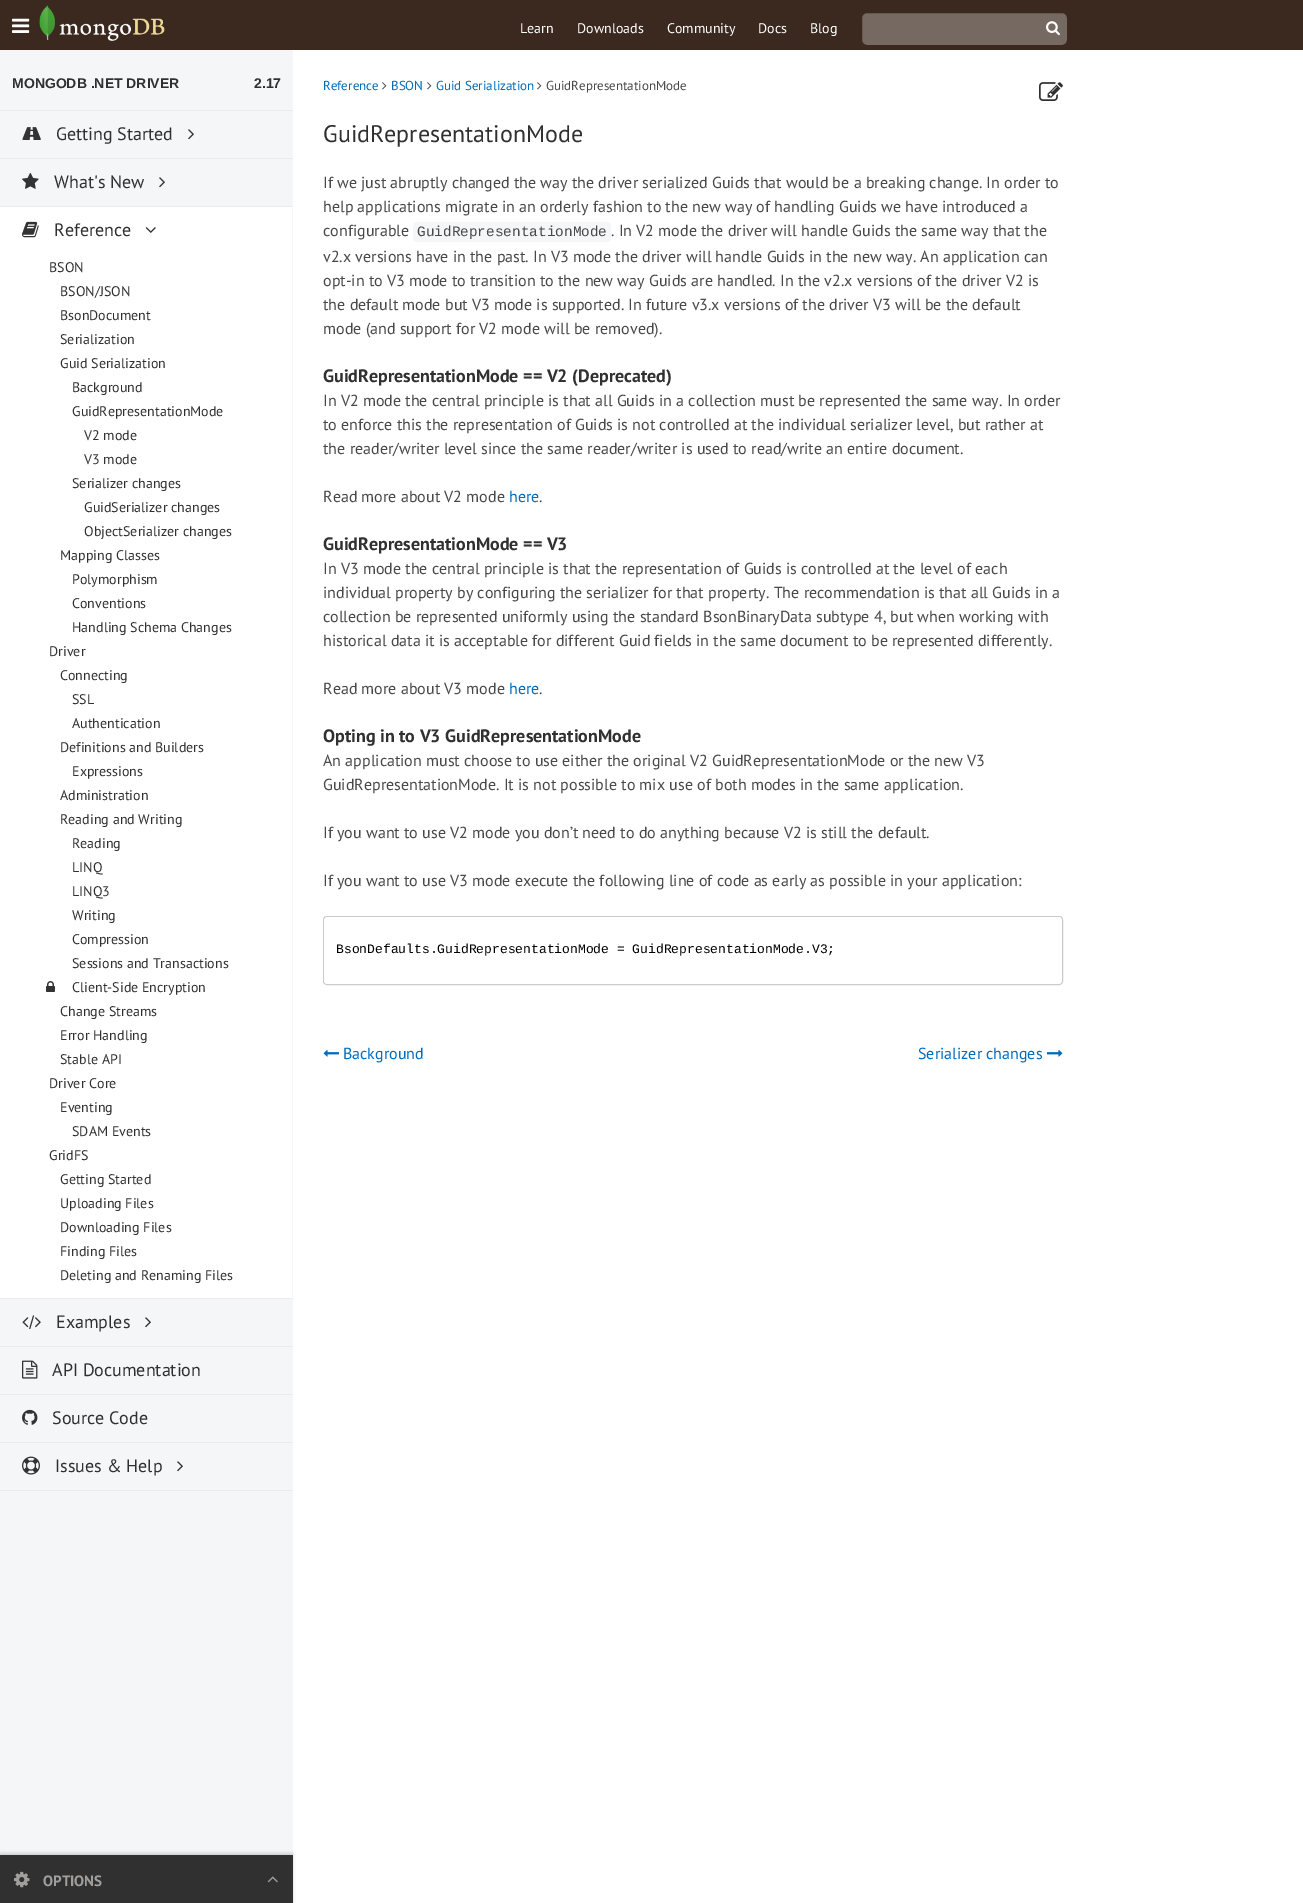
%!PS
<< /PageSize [1303 1903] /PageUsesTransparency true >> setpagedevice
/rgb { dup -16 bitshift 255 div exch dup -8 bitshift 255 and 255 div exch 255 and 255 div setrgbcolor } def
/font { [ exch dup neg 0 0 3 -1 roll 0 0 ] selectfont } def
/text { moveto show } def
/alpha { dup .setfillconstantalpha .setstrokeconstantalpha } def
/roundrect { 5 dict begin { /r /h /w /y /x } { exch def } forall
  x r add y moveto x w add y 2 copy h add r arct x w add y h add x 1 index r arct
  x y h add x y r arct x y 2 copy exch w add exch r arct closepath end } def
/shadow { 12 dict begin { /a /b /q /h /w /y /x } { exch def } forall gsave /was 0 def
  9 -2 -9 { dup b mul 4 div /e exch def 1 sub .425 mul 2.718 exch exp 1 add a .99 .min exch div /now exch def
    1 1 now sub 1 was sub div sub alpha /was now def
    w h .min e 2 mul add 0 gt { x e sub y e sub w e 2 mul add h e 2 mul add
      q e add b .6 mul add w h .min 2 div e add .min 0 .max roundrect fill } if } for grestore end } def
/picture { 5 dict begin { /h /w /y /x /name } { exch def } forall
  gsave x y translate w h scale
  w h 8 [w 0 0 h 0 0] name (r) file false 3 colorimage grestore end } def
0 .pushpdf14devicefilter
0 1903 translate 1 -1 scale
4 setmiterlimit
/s1 { /PTSans-Regular 14 font 16#FFFFFF rgb } def
/s2 { /LiberationSans-Bold 14 font 16#313030 rgb } def
/s3 { /PTSans-Regular 18 font 16#313030 rgb } def
/s4 { /PTSans-Regular 14 font 16#313030 rgb } def
/s5 { /PTSans-Regular 13 font 16#006CBC rgb } def
/s6 { /PTSans-Regular 13 font 16#494747 rgb } def
/s7 { /PTSans-Regular 24 font 16#313030 rgb } def
/s8 { /PTSans-Regular 16 font 16#494747 rgb } def
/s9 { /LiberationMono-Regular 14.4 font 16#494747 rgb } def
/s10 { /PTSans-Bold 18 font 16#313030 rgb } def
/s11 { /PTSans-Regular 16 font 16#006CBC rgb } def
/s12 { /LiberationMono-Regular 13 font 16#000000 rgb } def
/s13 { /PTSans-Bold 15 font 16#A09F9E rgb } def
16#FFFFFF rgb
0 0 1303 1903 rectfill
16#3B291F rgb
0 0 1303 50 rectfill
(pic1.raw) 12 18 18 15 picture
(pic2.raw) 39 5 126 36 picture
s1
(Learn) 520 33 text
(Downloads) 577 33 text
(Community) 667 33 text
(Docs) 758 33 text
(Blog) 810 33 text
16#766962 rgb
861.5 12.5 206 33 5.5 roundrect gsave fill grestore
16#3B2920 rgb
stroke
(pic3.raw) 1046 21 14 15 picture
16#F5F6F7 rgb
0 50 293 1805 rectfill
s2
(MONGODB .NET DRIVER) 12 88 text
(2.17) 254 88 text
16#EBEBED rgb
0 110 293 1 rectfill
(pic4.raw) 22 127 19 13 picture
s3
(Getting Started) 56 140 text
(pic5.raw) 188 129 6 11 picture
16#EBEBED rgb
0 158 293 1 rectfill
(pic6.raw) 22 172 17 17 picture
s3
(What's New) 54 188 text
(pic5.raw) 159 177 6 11 picture
16#FFFFFF rgb
0 207 292 1091 rectfill
16#EBEBED rgb
0 206 293 1 rectfill
16#F5F6F7 rgb
292 206 1 1 rectfill
(pic7.raw) 22 221 17 17 picture
s3
(Reference) 54 236 text
(pic8.raw) 145 227 11 6 picture
s4
(BSON) 49 272 text
(BSON/JSON) 60 296 text
(BsonDocument) 60 320 text
(Serialization) 60 344 text
(Guid Serialization) 60 368 text
(Background) 72 392 text
(GuidRepresentationMode) 72 416 text
(V2 mode) 84 440 text
(V3 mode) 84 464 text
(Serializer changes) 72 488 text
(GuidSerializer changes) 84 512 text
(ObjectSerializer changes) 84 536 text
(Mapping Classes) 60 560 text
(Polymorphism) 72 584 text
(Conventions) 72 608 text
(Handling Schema Changes) 72 632 text
(Driver) 49 656 text
(Connecting) 60 680 text
(SSL) 72 704 text
(Authentication) 72 728 text
(Definitions and Builders) 60 752 text
(Expressions) 72 776 text
(Administration) 60 800 text
(Reading and Writing) 60 824 text
(Reading) 72 848 text
(LINQ) 72 872 text
(LINQ3) 72 896 text
(Writing) 72 920 text
(Compression) 72 944 text
(Sessions and Transactions) 72 968 text
(pic9.raw) 46 981 9 11 picture
(Client-Side Encryption) 72 992 text
(Change Streams) 60 1016 text
(Error Handling) 60 1040 text
(Stable API) 60 1064 text
(Driver Core) 49 1088 text
(Eventing) 60 1112 text
(SDAM Events) 72 1136 text
(GridFS) 49 1160 text
(Getting Started) 60 1184 text
(Uploading Files) 60 1208 text
(Downloading Files) 60 1232 text
(Finding Files) 60 1256 text
(Deleting and Renaming Files) 60 1280 text
16#EBEBED rgb
0 1298 293 1 rectfill
(pic10.raw) 22 1315 19 14 picture
s3
(Examples) 56 1328 text
(pic5.raw) 145 1317 6 11 picture
16#EBEBED rgb
0 1346 293 1 rectfill
(pic11.raw) 22 1360 16 19 picture
s3
(API Documentation) 52 1376 text
16#EBEBED rgb
0 1394 293 1 rectfill
(pic12.raw) 22 1409 16 16 picture
s3
(Source Code) 52 1424 text
16#EBEBED rgb
0 1442 293 1 rectfill
0 1490 293 1 rectfill
(pic13.raw) 22 1456 18 19 picture
s3
(Issues & Help) 55 1472 text
(pic5.raw) 177 1461 6 11 picture
s5
(Reference) 323 90 text
(pic14.raw) 382 82 5 8 picture
(BSON) 391 90 text
(pic14.raw) 427 82 5 8 picture
(Guid Serialization) 436 90 text
(pic14.raw) 537 82 5 8 picture
s6
(GuidRepresentationMode) 546 90 text
(pic15.raw) 1039 82 24 19 picture
s7
(GuidRepresentationMode) 323 142 text
s8
(If we just abruptly changed the way the driver serialized Guids that would be a breaking change. In order to) 323 188 text
(help applications migrate in an orderly fashion to the new way of handling Guids we have introduced a) 323 212 text
(configurable) 323 236 text
16#F5F6F7 rgb
413 222 198 20 4 roundrect fill
s9
(GuidRepresentationMode) 417 236 text
s8
(. In V2 mode the driver will handle Guids the same way that the) 611 236 text
(v2.x versions have in the past. In V3 mode the driver will handle Guids in the new way. An application can) 323 262 text
(opt-in to V3 mode to transition to the new way Guids are handled. In the v2.x versions of the driver V2 is) 323 286 text
(the default mode but V3 mode is supported. In future v3.x versions of the driver V3 will be the default) 323 310 text
(mode \(and support for V2 mode will be removed\).) 323 334 text
s10
(GuidRepresentationMode == V2 \(Deprecated\)) 323 382 text
s8
(In V2 mode the central principle is that all Guids in a collection must be represented the same way. In order) 323 406 text
(to enforce this the representation of Guids is not controlled at the individual serializer level, but rather at) 323 430 text
(the reader/writer level since the same reader/writer is used to read/write an entire document.) 323 454 text
(Read more about V2 mode) 323 502 text
s11
(here) 509 502 text
s8
(.) 539 502 text
s10
(GuidRepresentationMode == V3) 323 550 text
s8
(In V3 mode the central principle is that the representation of Guids is controlled at the level of each) 323 574 text
(individual property by configuring the serializer for that property. The recommendation is that all Guids in a) 323 598 text
(collection be represented uniformly using the standard BsonBinaryData subtype 4, but when working with) 323 622 text
(historical data it is acceptable for different Guid fields in the same document to be represented differently.) 323 646 text
(Read more about V3 mode) 323 694 text
s11
(here) 509 694 text
s8
(.) 539 694 text
s10
(Opting in to V3 GuidRepresentationMode) 323 742 text
s8
(An application must choose to use either the original V2 GuidRepresentationMode or the new V3) 323 766 text
(GuidRepresentationMode. It is not possible to mix use of both modes in the same application.) 323 790 text
(If you want to use V2 mode you don’t need to do anything because V2 is still the default.) 323 838 text
(If you want to use V3 mode execute the following line of code as early as possible in your application:) 323 886 text
16#F5F5F5 rgb
323.5 916.5 739 68 3.5 roundrect gsave fill grestore
16#CCCCCC rgb
stroke
gsave
324 917 738 67 3 roundrect clip newpath
16#FFFFFF rgb
324 917 738 67 4 roundrect fill
grestore
s12
(BsonDefaults.GuidRepresentationMode = GuidRepresentationMode.V3;) 336 953 text
(pic16.raw) 323 1049 16 8 picture
s11
(Background) 343 1059 text
(Serializer changes) 918 1059 text
(pic17.raw) 1047 1049 16 8 picture
16#000000 rgb
0 1853 293 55 0 1.5 0.15 shadow
16#313030 rgb
0 1855 293 48 rectfill
(pic18.raw) 14 1871 16 17 picture
s13
(OPTIONS) 43 1886 text
(pic19.raw) 267 1876 11 7 picture
.poppdf14devicefilter showpage
